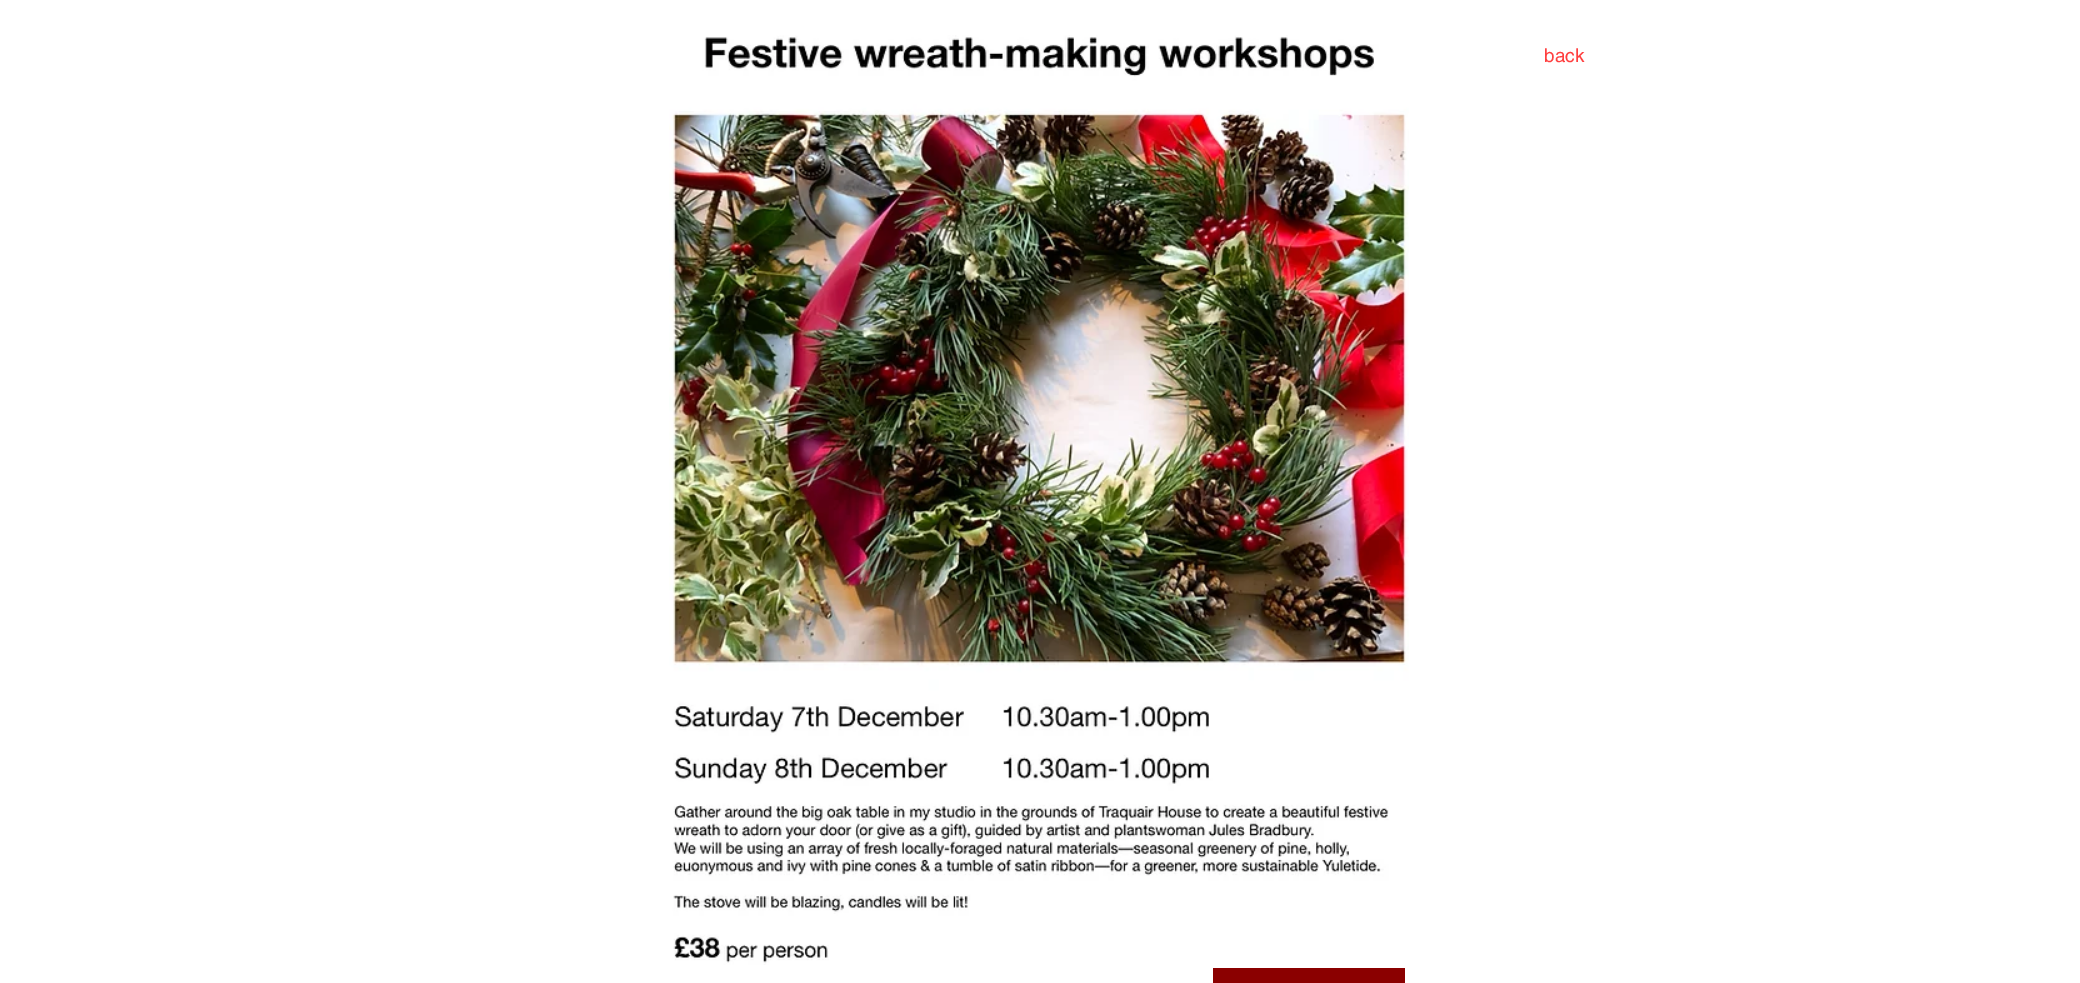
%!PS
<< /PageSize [2080 983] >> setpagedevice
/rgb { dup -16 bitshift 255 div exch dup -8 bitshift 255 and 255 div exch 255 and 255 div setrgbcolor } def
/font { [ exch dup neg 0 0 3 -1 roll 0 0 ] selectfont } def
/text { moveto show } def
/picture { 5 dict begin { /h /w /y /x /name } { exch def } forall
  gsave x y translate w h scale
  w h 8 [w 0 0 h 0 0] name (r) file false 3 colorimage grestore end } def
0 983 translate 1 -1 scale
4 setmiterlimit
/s1 { /helvetica-Regular 19 font 16#FF4040 rgb } def
16#FFFFFF rgb
0 0 2080 983 rectfill
(pic1.raw) 669 35 740 930 picture
s1
(back) 1544 62 text
16#8B0000 rgb
1213 968 192 15 rectfill
showpage
